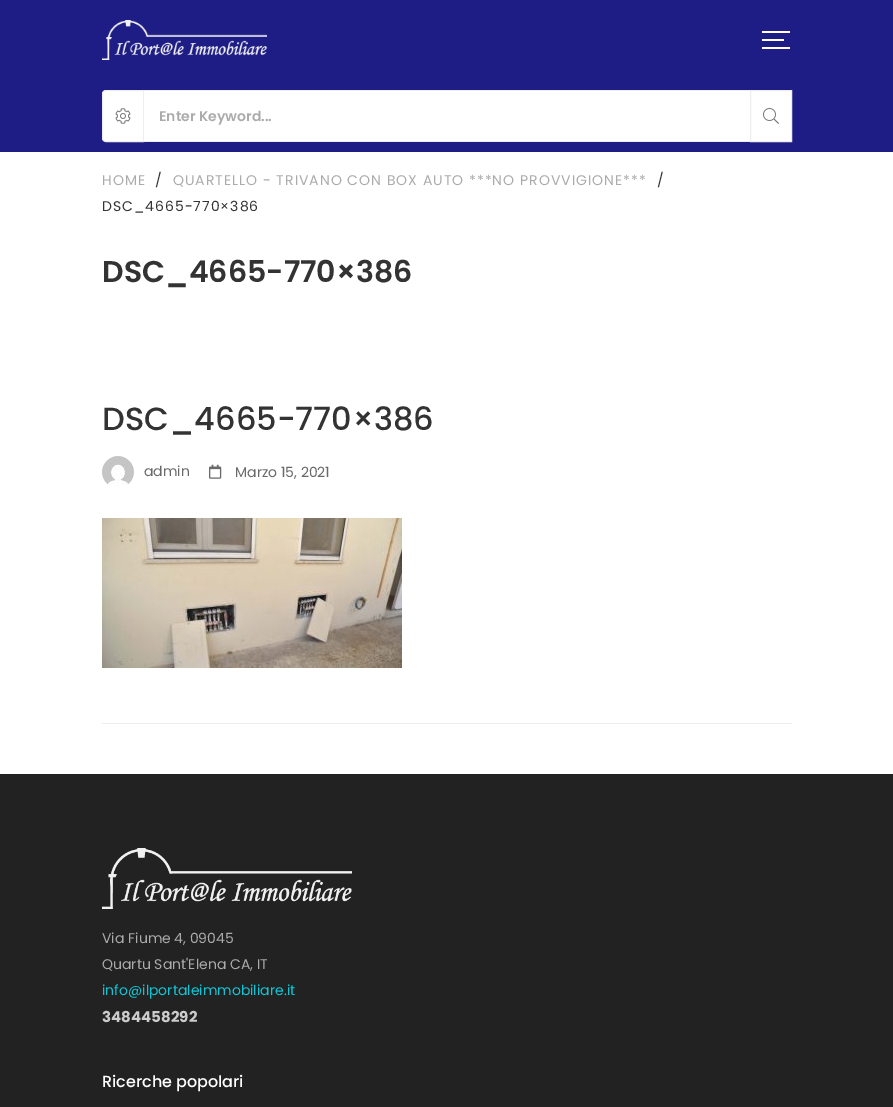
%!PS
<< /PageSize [893 1107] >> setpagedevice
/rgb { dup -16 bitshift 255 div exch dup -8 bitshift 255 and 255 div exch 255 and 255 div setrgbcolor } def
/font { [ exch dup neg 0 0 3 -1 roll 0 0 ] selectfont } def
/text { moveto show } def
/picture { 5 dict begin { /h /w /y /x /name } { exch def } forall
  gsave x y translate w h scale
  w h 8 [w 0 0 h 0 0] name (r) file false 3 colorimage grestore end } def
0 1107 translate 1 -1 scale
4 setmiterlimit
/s1 { /Poppins-SemiBold 14 font 16#ABABAB rgb } def
/s2 { /Poppins-SemiBold 30 font 16#333333 rgb } def
/s3 { /Poppins-Medium 32 font 16#333333 rgb } def
/s4 { /Poppins-Regular 14 font 16#696969 rgb } def
/s5 { /Poppins-Regular 14 font 16#ABABAB rgb } def
/s6 { /Poppins-Regular 14 font 16#0EC6D5 rgb } def
/s7 { /Poppins-Bold 15 font 16#CCCCCC rgb } def
/s8 { /Poppins-Medium 16 font 16#FFFFFF rgb } def
16#FFFFFF rgb
0 0 893 1107 rectfill
16#1E1D85 rgb
0 0 893 152 rectfill
(pic1.raw) 102 20 165 40 picture
16#FFFFFF rgb
762 39 22 2 rectfill
762 31 28 2 rectfill
762 47 28 2 rectfill
106 90.5 moveto 143.5 90.5 lineto 143.5 141.5 lineto 106 141.5 lineto 104 141.5 102.5 140 102.5 138 curveto 102.5 94 lineto 102.5 92 104 90.5 106 90.5 curveto closepath gsave fill grestore
16#EEEEEE rgb
stroke
(pic2.raw) 115 108 16 16 picture
16#FFFFFF rgb
144 91 606 50 rectfill
16#EEEEEE rgb
144 90 607 1 rectfill
144 141 607 1 rectfill
s1
(Enter Keyword...) 159 121 text
16#FFFFFF rgb
750.5 90.5 moveto 791.5 90.5 lineto 791.5 141.5 lineto 750.5 141.5 lineto closepath gsave fill grestore
16#EEEEEE rgb
stroke
(pic3.raw) 763 108 16 16 picture
/Poppins-Regular 14 font
16#ABABAB rgb
102 185 moveto 1 0 (HOME) ashow
16#333333 rgb
155 185 moveto 1 0 (/) ashow
16#ABABAB rgb
173 185 moveto 1 0 (QUARTELLO - TRIVANO CON BOX AUTO ***NO PROVVIGIONE***) ashow
16#333333 rgb
657 185 moveto 1 0 (/) ashow
102 211 moveto 1 0 (DSC_4665-770×386) ashow
s2
(DSC_4665-770×386) 102 282 text
16#EEEEEE rgb
102 723 690 1 rectfill
s3
(DSC_4665-770×386) 102 430 text
(pic4.raw) 102 456 32 30 picture
s4
(admin) 144 476 text
(pic5.raw) 209 464 13 15 picture
(Marzo 15, 2021) 235 477 text
(pic6.raw) 102 518 300 150 picture
16#222222 rgb
0 774 893 333 rectfill
(pic7.raw) 102 848 250 61 picture
s5
(Via Fiume 4, 09045) 102 943 text
(Quartu Sant'Elena CA, IT) 102 969 text
s6
(info@ilportaleimmobiliare.it) 102 995 text
s7
(3484458292) 102 1022 text
s8
(Ricerche popolari) 102 1087 text
showpage
